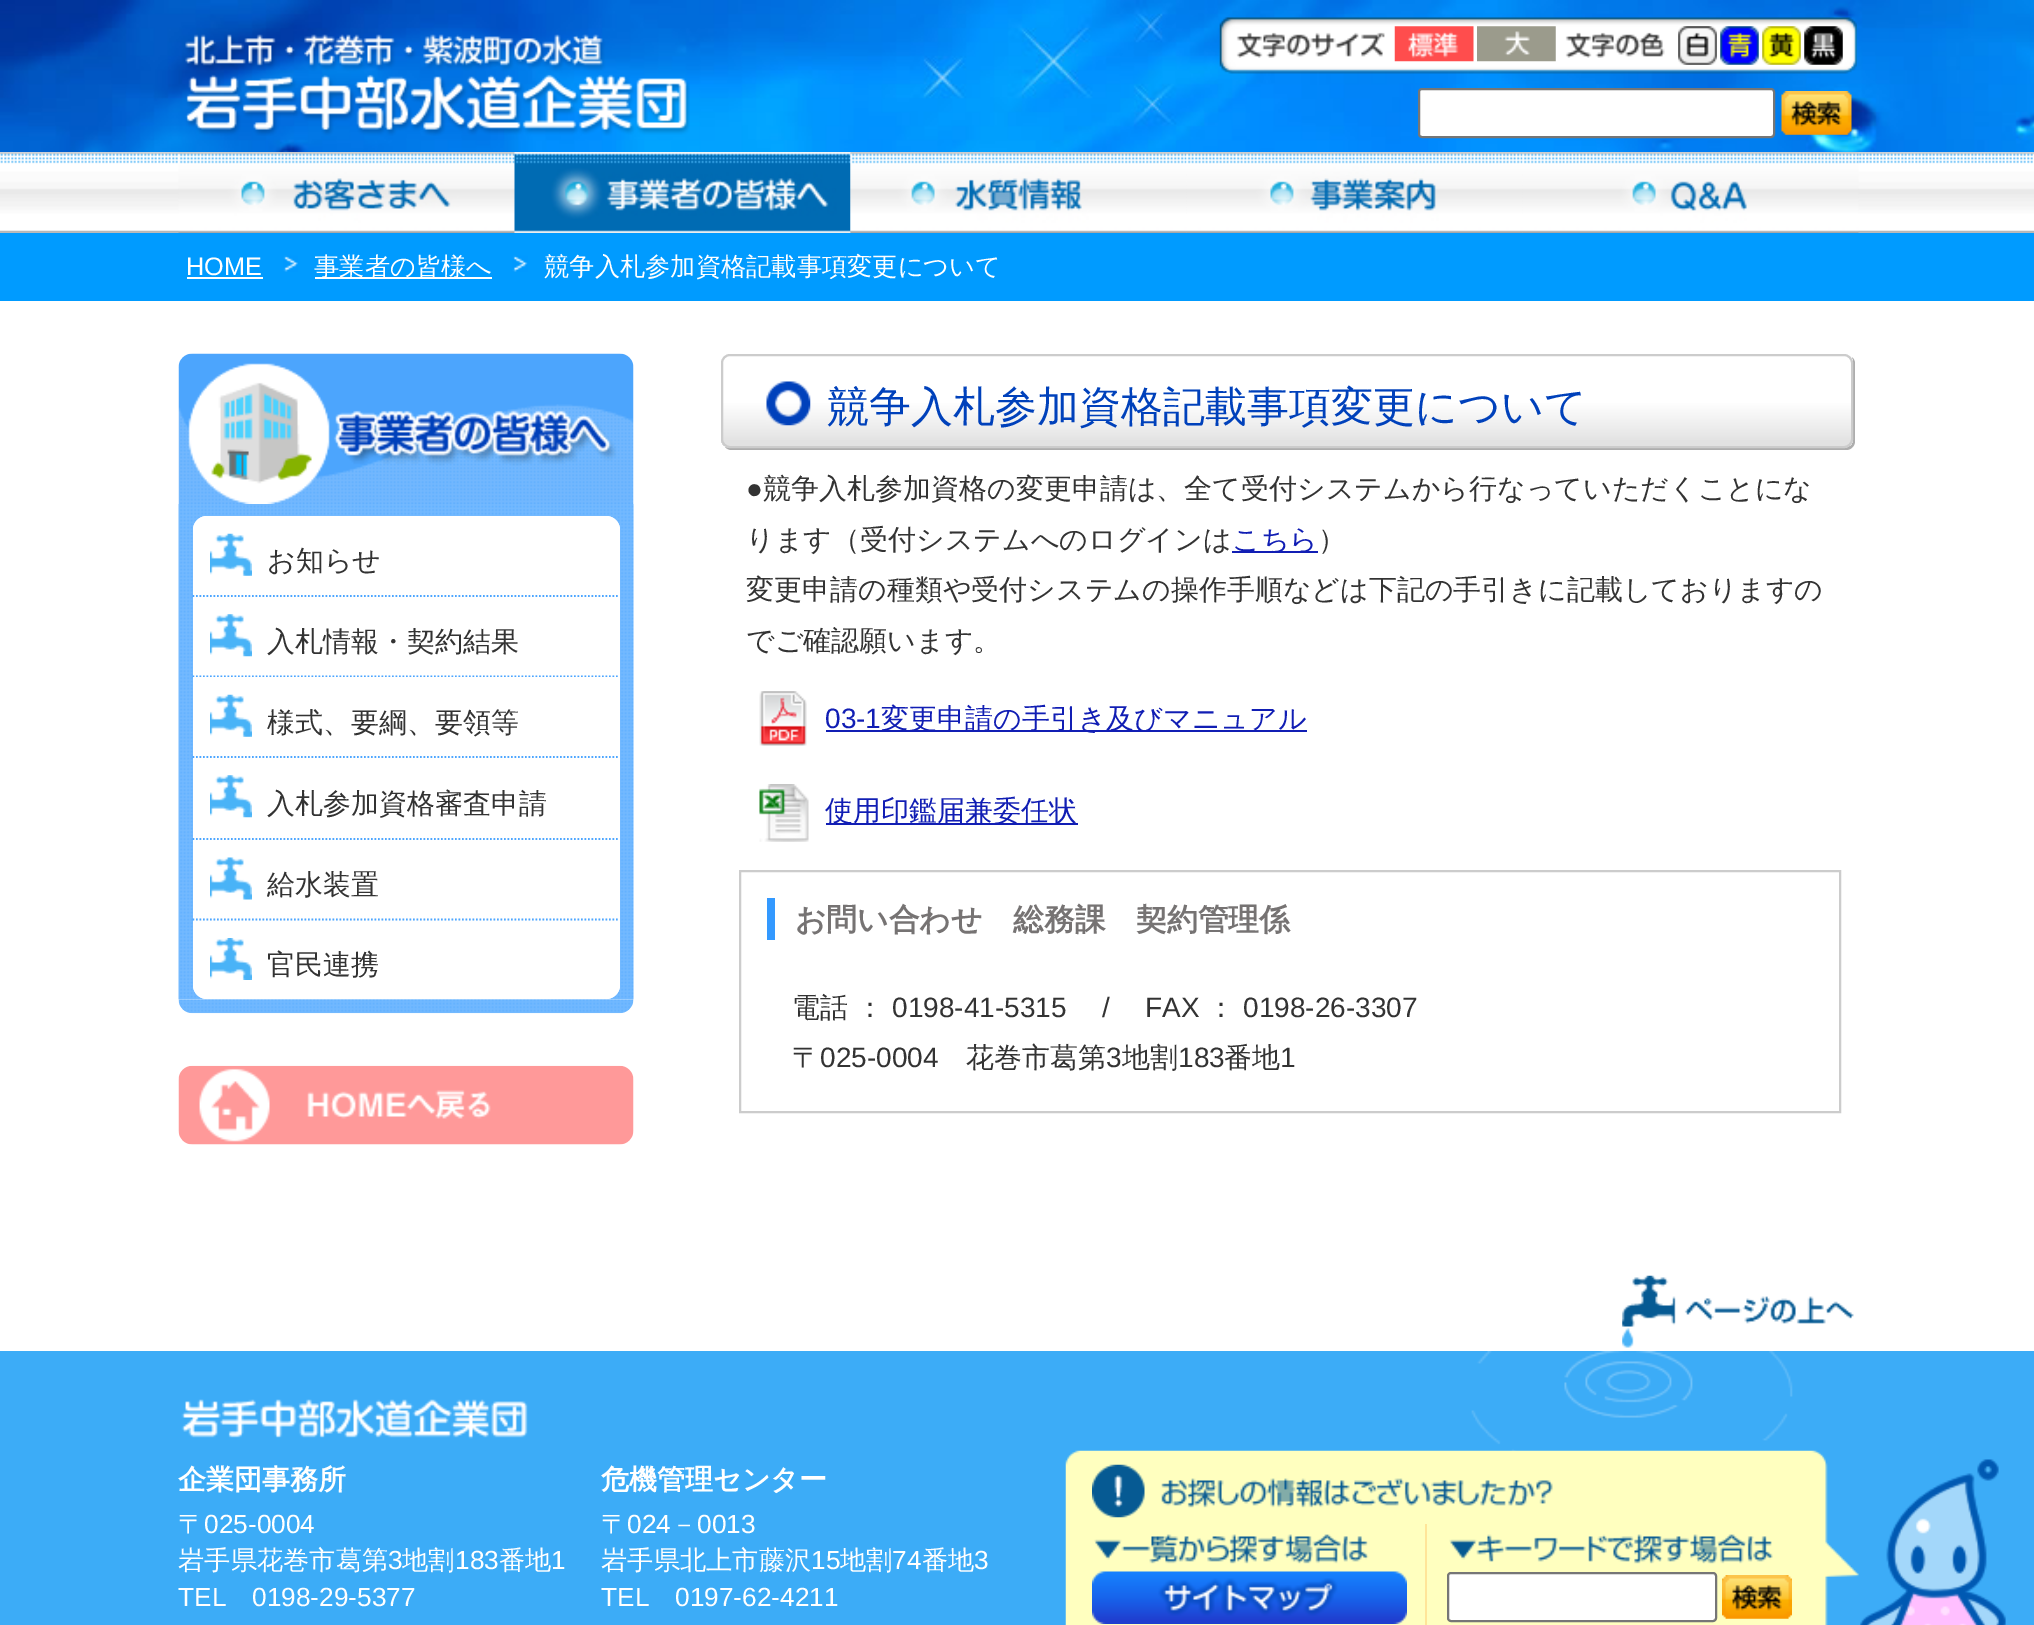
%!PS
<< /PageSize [2034 1625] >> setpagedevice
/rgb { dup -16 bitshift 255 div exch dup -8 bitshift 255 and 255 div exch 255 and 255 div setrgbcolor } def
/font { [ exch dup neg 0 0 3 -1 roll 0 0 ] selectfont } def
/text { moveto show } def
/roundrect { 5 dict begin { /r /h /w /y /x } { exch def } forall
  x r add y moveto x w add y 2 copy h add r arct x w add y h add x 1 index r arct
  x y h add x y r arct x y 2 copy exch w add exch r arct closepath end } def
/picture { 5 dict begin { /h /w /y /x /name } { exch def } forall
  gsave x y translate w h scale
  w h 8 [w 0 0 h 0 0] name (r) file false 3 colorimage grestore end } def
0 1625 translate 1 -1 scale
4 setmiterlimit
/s1 { /LiberationSans-Regular 25.25 font 16#FFFFFF rgb } def
/s2 { /WenQuanYiZenHei-Medium 25.25 font 16#FFFFFF rgb } def
/s3 { /WenQuanYiZenHei-Medium 28 font 16#333333 rgb } def
/s4 { /WenQuanYiZenHei-Medium 42 font 16#0041BB rgb } def
/s5 { /LiberationSans-Regular 28 font 16#333333 rgb } def
/s6 { /WenQuanYiZenHei-Medium 28 font 16#111EB4 rgb } def
/s7 { /LiberationSans-Regular 28 font 16#111EB4 rgb } def
/s8 { /WenQuanYiZenHei-Bold 30.75 font 16#767373 rgb } def
/s9 { /WenQuanYiZenHei-Bold 28 font 16#FFFFFF rgb } def
/s10 { /WenQuanYiZenHei-Medium 26.25 font 16#FFFFFF rgb } def
/s11 { /LiberationSans-Regular 26.25 font 16#FFFFFF rgb } def
16#FFFFFF rgb
0 0 2034 1625 rectfill
(pic1.raw) 0 0 2034 153 picture
(pic2.raw) 185 34 505 102 picture
(pic3.raw) 1219 17 638 57 picture
(pic4.raw) 1236 32 149 26 picture
(pic5.raw) 1394 26 80 36 picture
(pic6.raw) 1477 26 79 36 picture
(pic7.raw) 1565 32 100 26 picture
(pic8.raw) 1678 26 39 39 picture
(pic9.raw) 1720 26 39 39 picture
(pic10.raw) 1762 26 39 39 picture
(pic11.raw) 1804 26 39 39 picture
1419 89 355 48 3 roundrect gsave fill grestore
16#767676 rgb
2 setlinewidth
stroke
(pic12.raw) 1781 91 71 44 picture
(pic13.raw) 0 152 2034 81 picture
(pic14.raw) 178 152 337 81 picture
(pic15.raw) 514 152 337 81 picture
(pic16.raw) 850 152 337 81 picture
(pic17.raw) 1186 152 337 81 picture
(pic18.raw) 1522 152 337 81 picture
16#009BFF rgb
0 233 2034 68 rectfill
s1
(HOME) 186 275 text
187 277 76 2 rectfill
(pic19.raw) 283 255 15 17 picture
315 277 177 2 rectfill
s2
(事業者の皆様へ) 314 275 text
(pic20.raw) 512 255 16 17 picture
(競争入札参加資格記載事項変更について) 544 275 text
(pic21.raw) 178 353 456 151 picture
(pic22.raw) 178 504 456 496 picture
193 516 427 483 14 roundrect fill
207 516 moveto 606 516 lineto 613.5 516 620 522.5 620 530 curveto 620 597 lineto 193 597 lineto 193 530 lineto 193 522.5 199.5 516 207 516 curveto closepath fill
(pic23.raw) 210 533 42 43 picture
16#4DA6FF rgb
1.8 setlinewidth
[1.75 1.75] 0 setdash
192.5 596 moveto 619.5 596 lineto stroke
s3
(お知らせ) 267 570 text
(pic24.raw) 210 614 42 43 picture
16#4DA6FF rgb
192.5 676.5 moveto 619.5 676.5 lineto stroke
s3
(入札情報・契約結果) 267 651 text
16#FFFFFF rgb
193 677 425 1 rectfill
(pic23.raw) 210 694 42 43 picture
16#4DA6FF rgb
192.5 757 moveto 619.5 757 lineto stroke
s3
(様式、要綱、要領等) 267 732 text
(pic24.raw) 210 775 42 43 picture
16#4DA6FF rgb
192.5 839 moveto 619.5 839 lineto stroke
s3
(入札参加資格審査申請) 267 813 text
(pic25.raw) 210 857 42 43 picture
16#4DA6FF rgb
192.5 919.5 moveto 619.5 919.5 lineto stroke
s3
(給水装置) 267 894 text
16#FFFFFF rgb
193 921 moveto 620 921 lineto 620 985 lineto 620 992.5 613.5 999 606 999 curveto 207 999 lineto 199.5 999 193 992.5 193 985 curveto closepath fill
(pic26.raw) 210 938 42 42 picture
s3
(官民連携) 267 974 text
(pic27.raw) 178 999 456 15 picture
(pic28.raw) 178 1065 456 80 picture
16#ADADAD rgb
725 447 moveto 727 449 729 450 732 450 curveto 1846 450 lineto 1851 450 1855 446 1855 441 curveto 1855 364 lineto 1855 361 1854 358 1851 357 curveto 1853 358 1853 360 1853 362 curveto 1853 439 lineto 1853 444 1849 448 1844 448 curveto 730 448 lineto 728 448 726 447 725 447 curveto closepath fill
gsave
721 354 1132 94 9 roundrect clip newpath
gsave 721 355 moveto 1853 355 lineto 1853 446 lineto 721 446 lineto closepath clip newpath
<< /ShadingType 2 /ColorSpace /DeviceRGB /Coords [1287 355 1287 446] /Extend [true true] /Function << /FunctionType 3 /Domain [0 1] /Functions [<< /FunctionType 2 /Domain [0 1] /C0 [1 1 1] /C1 [1 1 1] /N 1 >> << /FunctionType 2 /Domain [0 1] /C0 [1 1 1] /C1 [0.894 0.894 0.894] /N 1 >> << /FunctionType 2 /Domain [0 1] /C0 [0.894 0.894 0.894] /C1 [0.886 0.886 0.886] /N 1 >> << /FunctionType 2 /Domain [0 1] /C0 [0.886 0.886 0.886] /C1 [0.886 0.886 0.886] /N 1 >>] /Bounds [0.52 0.93 0.96] /Encode [0 1 0 1 0 1 0 1] >> >> shfill grestore
grestore
16#CCCCCC rgb
2 setlinewidth
[] 0 setdash
722 355 1130 92 8 roundrect stroke
(pic29.raw) 766 381 45 45 picture
s4
(競争入札参加資格記載事項変更について) 827 421 text
s5
(●) 746 498 text
s3
(競争入札参加資格の変更申請は、全て受付システムから行なっていただくことにな) 763 498 text
(ります（受付システムへのログインは) 746 549 text
16#111EB4 rgb
1232 551 86 2 rectfill
(こちら) 1232 549 text
s3
(）) 1318 549 text
(変更申請の種類や受付システムの操作手順などは下記の手引きに記載しておりますの) 746 599 text
(でご確認願います。) 746 650 text
(pic30.raw) 759 691 48 55 picture
s7
(03-1) 825 728 text
826 730 481 2 rectfill
s6
(変更申請の手引き及びマニュアル) 881 728 text
(pic31.raw) 759 784 50 58 picture
826 823 252 2 rectfill
(使用印鑑届兼委任状) 825 820 text
16#CCCCCC rgb
740 871 1100 241 rectstroke
16#3399FF rgb
767 898 8 42 rectfill
s8
(お問い合わせ　総務課　契約管理係) 795 930 text
s3
(電話 ：) 792 1017 text
s5
(0198-41-5315) 892 1017 text
(/) 1102 1017 text
(FAX) 1145 1017 text
s3
(：) 1207 1017 text
s5
(0198-26-3307) 1243 1017 text
s3
(〒) 792 1067 text
s5
(025-0004) 820 1067 text
s3
(花巻市葛第) 966 1067 text
s5
(3) 1106 1067 text
s3
(地割) 1122 1067 text
s5
(183) 1178 1067 text
s3
(番地) 1224 1067 text
s5
(1) 1280 1067 text
(pic32.raw) 1622 1275 232 73 picture
16#3CACF7 rgb
0 1351 2034 274 rectfill
(pic33.raw) 1471 1351 322 100 picture
(pic34.raw) 181 1399 347 40 picture
s9
(企業団事務所) 178 1489 text
s10
(〒) 178 1533 text
s11
(025-0004) 204 1533 text
s10
(岩手県花巻市葛第) 178 1569 text
s11
(3) 388 1569 text
s10
(地割) 402 1569 text
s11
(183) 455 1569 text
s10
(番地) 499 1569 text
s11
(1) 551 1569 text
(TEL) 178 1606 text
(0198-29-5377) 252 1606 text
s9
(危機管理センター) 601 1489 text
s10
(〒) 601 1533 text
s11
(024) 627 1533 text
s10
(－) 671 1533 text
s11
(0013) 697 1533 text
s10
(岩手県北上市藤沢) 601 1569 text
s11
(15) 811 1569 text
s10
(地割) 840 1569 text
s11
(74) 892 1569 text
s10
(番地) 922 1569 text
s11
(3) 974 1569 text
(TEL) 601 1606 text
(0197-62-4211) 675 1606 text
(pic35.raw) 1065 1450 794 175 picture
(pic36.raw) 1092 1464 461 54 picture
16#FFE599 rgb
1425 1524 2 101 rectfill
(pic37.raw) 1094 1534 275 30 picture
(pic38.raw) 1092 1571 315 53 picture
(pic39.raw) 1449 1534 324 30 picture
16#FFFFFF rgb
1448 1573 268 48 3 roundrect gsave fill grestore
16#767676 rgb
stroke
(pic40.raw) 1722 1575 70 44 picture
(pic41.raw) 1860 1459 146 166 picture
showpage
